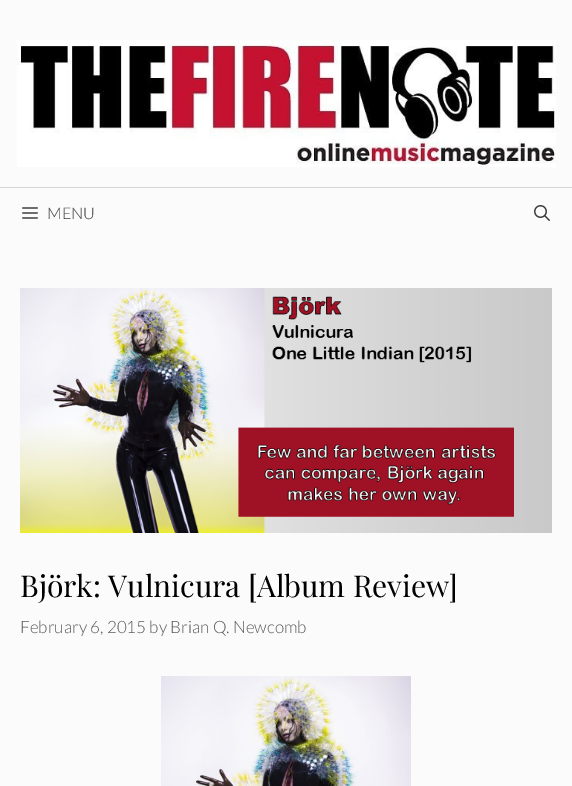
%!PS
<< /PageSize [572 786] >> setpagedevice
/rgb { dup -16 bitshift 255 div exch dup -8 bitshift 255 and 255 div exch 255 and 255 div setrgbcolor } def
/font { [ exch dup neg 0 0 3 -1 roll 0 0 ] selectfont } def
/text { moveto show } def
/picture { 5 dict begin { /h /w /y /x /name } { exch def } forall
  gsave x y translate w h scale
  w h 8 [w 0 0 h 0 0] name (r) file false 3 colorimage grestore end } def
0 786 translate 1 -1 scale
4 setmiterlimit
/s1 { /Lato-Light 16 font 16#3A3A3A rgb } def
/s2 { /PlayfairDisplay-Regular 30 font 16#000000 rgb } def
/s3 { /Lato-Light 17 font 16#595959 rgb } def
16#FBFBFB rgb
0 0 572 786 rectfill
(pic1.raw) 17 40 539 127 picture
16#D4D7D8 rgb
0 187 572 1 rectfill
(pic2.raw) 22 207 16 12 picture
s1
(MENU) 47 219 text
(pic3.raw) 534 205 16 16 picture
(pic4.raw) 20 288 532 245 picture
s2
(Björk: Vulnicura [Album Review]) 20 597 text
s3
(February 6, 2015 by Brian Q. Newcomb) 20 633 text
(pic5.raw) 161 676 250 110 picture
showpage
